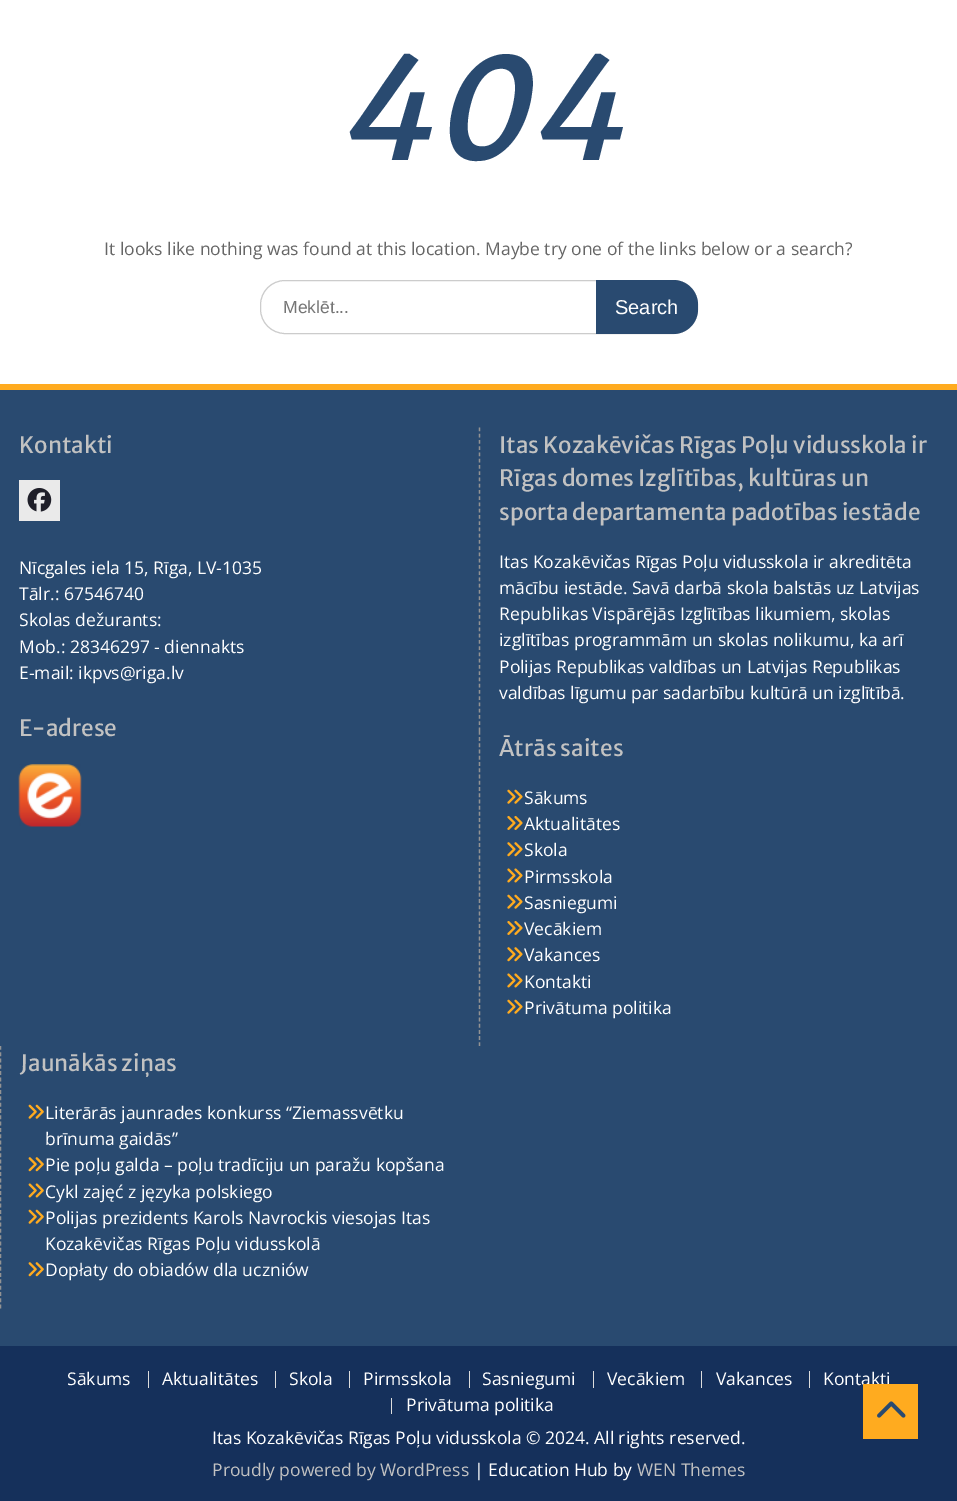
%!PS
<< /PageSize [957 1501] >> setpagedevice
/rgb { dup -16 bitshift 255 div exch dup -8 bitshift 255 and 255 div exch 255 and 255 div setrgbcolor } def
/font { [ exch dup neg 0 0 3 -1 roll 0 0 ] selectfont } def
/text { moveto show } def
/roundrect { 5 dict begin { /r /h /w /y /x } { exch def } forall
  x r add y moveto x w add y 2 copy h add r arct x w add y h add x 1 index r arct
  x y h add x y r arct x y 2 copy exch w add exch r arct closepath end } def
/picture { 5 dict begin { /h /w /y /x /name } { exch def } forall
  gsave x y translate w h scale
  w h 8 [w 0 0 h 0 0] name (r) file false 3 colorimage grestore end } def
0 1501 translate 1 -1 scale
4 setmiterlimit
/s1 { /MerriweatherSans-Italic 141 font 16#294A70 rgb } def
/s2 { /OpenSans-Regular 17.5 font 16#666666 rgb } def
/s3 { /LiberationSans-Regular 17.5 font 16#757575 rgb } def
/s4 { /LiberationSans-Regular 20 font 16#FFFFFF rgb } def
/s5 { /MerriweatherSans-Regular 22.5 font 16#C2C2C2 rgb } def
/s6 { /OpenSans-Regular 17.5 font 16#FFFFFF rgb } def
/s7 { /OpenSans-Regular 17.5 font 16#C2C2C2 rgb } def
16#FFFFFF rgb
0 0 957 1501 rectfill
s1
(404) 335 160 text
s2
(It looks like nothing was found at this location. Maybe try one of the links below or a search?) 104 255 text
16#CCCCCC rgb
260.5 280.5 437 53 24.5 roundrect stroke
s3
(Meklēt...) 283 313 text
16#294A70 rgb
596 280 moveto 673 280 lineto 687 280 698 291 698 305 curveto 698 309 lineto 698 323 687 334 673 334 curveto 596 334 lineto closepath fill
s4
(Search) 615 314 text
16#294A70 rgb
0 390 957 956 rectfill
16#FFAB1F rgb
0 384 957 6 rectfill
s5
(Kontakti) 19 453 text
16#EAEAEA rgb
19 480 41 41 rectfill
(pic1.raw) 27 488 25 24 picture
s6
(Nīcgales iela 15, Rīga, LV-1035) 19 574 text
(Tālr.: 67546740) 19 600 text
(Skolas dežurants:) 19 626 text
(Mob.: 28346297 - diennakts) 19 653 text
(E-mail: ikpvs@riga.lv) 19 679 text
s5
(E-adrese) 19 736 text
(pic2.raw) 18 764 64 63 picture
16#939393 rgb
1.2 setlinewidth
[3.75 2.5] 0 setdash
479.5 427.5 moveto 479.5 731 lineto stroke
s5
(Itas Kozakēvičas Rīgas Poļu vidusskola ir) 499 453 text
(Rīgas domes Izglītības, kultūras un) 499 486 text
(sporta departamenta padotības iestāde) 499 520 text
s6
(Itas Kozakēvičas Rīgas Poļu vidusskola ir akreditēta) 499 568 text
(mācību iestāde. Savā darbā skola balstās uz Latvijas) 499 594 text
(Republikas Vispārējās Izglītības likumiem, skolas) 499 620 text
(izglītības programmām un skolas nolikumu, ka arī) 499 646 text
(Polijas Republikas valdības un Latvijas Republikas) 499 673 text
(valdības līgumu par sadarbību kultūrā un izglītībā.) 499 699 text
16#939393 rgb
[3.75 2.48] 0 setdash
479.5 731 moveto 479.5 1046 lineto stroke
s5
(Ātrās saites) 499 756 text
(pic3.raw) 507 789 16 15 picture
s6
(Sākums) 524 804 text
(pic4.raw) 507 816 16 14 picture
(Aktualitātes) 524 830 text
(pic5.raw) 507 842 16 15 picture
(Skola) 524 856 text
(pic6.raw) 507 868 16 15 picture
(Pirmsskola) 524 883 text
(pic3.raw) 507 894 16 15 picture
(Sasniegumi) 524 909 text
(pic4.raw) 507 921 16 14 picture
(Vecākiem) 524 935 text
(pic5.raw) 507 947 16 15 picture
(Vakances) 524 961 text
(pic6.raw) 507 973 16 15 picture
(Kontakti) 524 988 text
(pic3.raw) 507 999 16 15 picture
(Privātuma politika) 524 1014 text
16#939393 rgb
[3.75 2.56] 0 setdash
0.5 1046 moveto 0.5 1309 lineto stroke
s5
(Jaunākās ziņas) 20 1071 text
(pic7.raw) 28 1104 16 15 picture
s6
(Literārās jaunrades konkurss “Ziemassvētku) 45 1119 text
(brīnuma gaidās”) 45 1145 text
(pic8.raw) 28 1157 16 15 picture
(Pie poļu galda – poļu tradīciju un paražu kopšana) 45 1171 text
(pic9.raw) 28 1183 16 15 picture
(Cykl zajęć z języka polskiego) 45 1198 text
(pic7.raw) 28 1209 16 15 picture
(Polijas prezidents Karols Navrockis viesojas Itas) 45 1224 text
(Kozakēvičas Rīgas Poļu vidusskolā) 45 1250 text
(pic8.raw) 28 1262 16 15 picture
(Dopłaty do obiadów dla uczniów) 45 1276 text
16#15305B rgb
0 1346 957 155 rectfill
s6
(Sākums) 67 1385 text
16#DDDDDD rgb
148 1371 1 17 rectfill
s6
(Aktualitātes) 162 1385 text
16#DDDDDD rgb
275 1371 1 17 rectfill
s6
(Skola) 289 1385 text
16#DDDDDD rgb
349 1371 1 17 rectfill
s6
(Pirmsskola) 363 1385 text
16#DDDDDD rgb
469 1371 1 17 rectfill
s6
(Sasniegumi) 482 1385 text
16#DDDDDD rgb
593 1371 1 17 rectfill
s6
(Vecākiem) 607 1385 text
16#DDDDDD rgb
701 1371 1 17 rectfill
s6
(Vakances) 716 1385 text
16#DDDDDD rgb
809 1371 1 17 rectfill
s6
(Kontakti) 823 1385 text
16#DDDDDD rgb
391 1398 1 16 rectfill
s6
(Privātuma politika) 406 1411 text
(Itas Kozakēvičas Rīgas Poļu vidusskola © 2024. All rights reserved.) 212 1444 text
s7
(Proudly powered by WordPress) 212 1476 text
s6
(| Education Hub by) 474 1476 text
s7
(WEN Themes) 637 1476 text
16#FFAB1F rgb
863 1384 55 55 rectfill
(pic10.raw) 877 1401 29 17 picture
showpage
